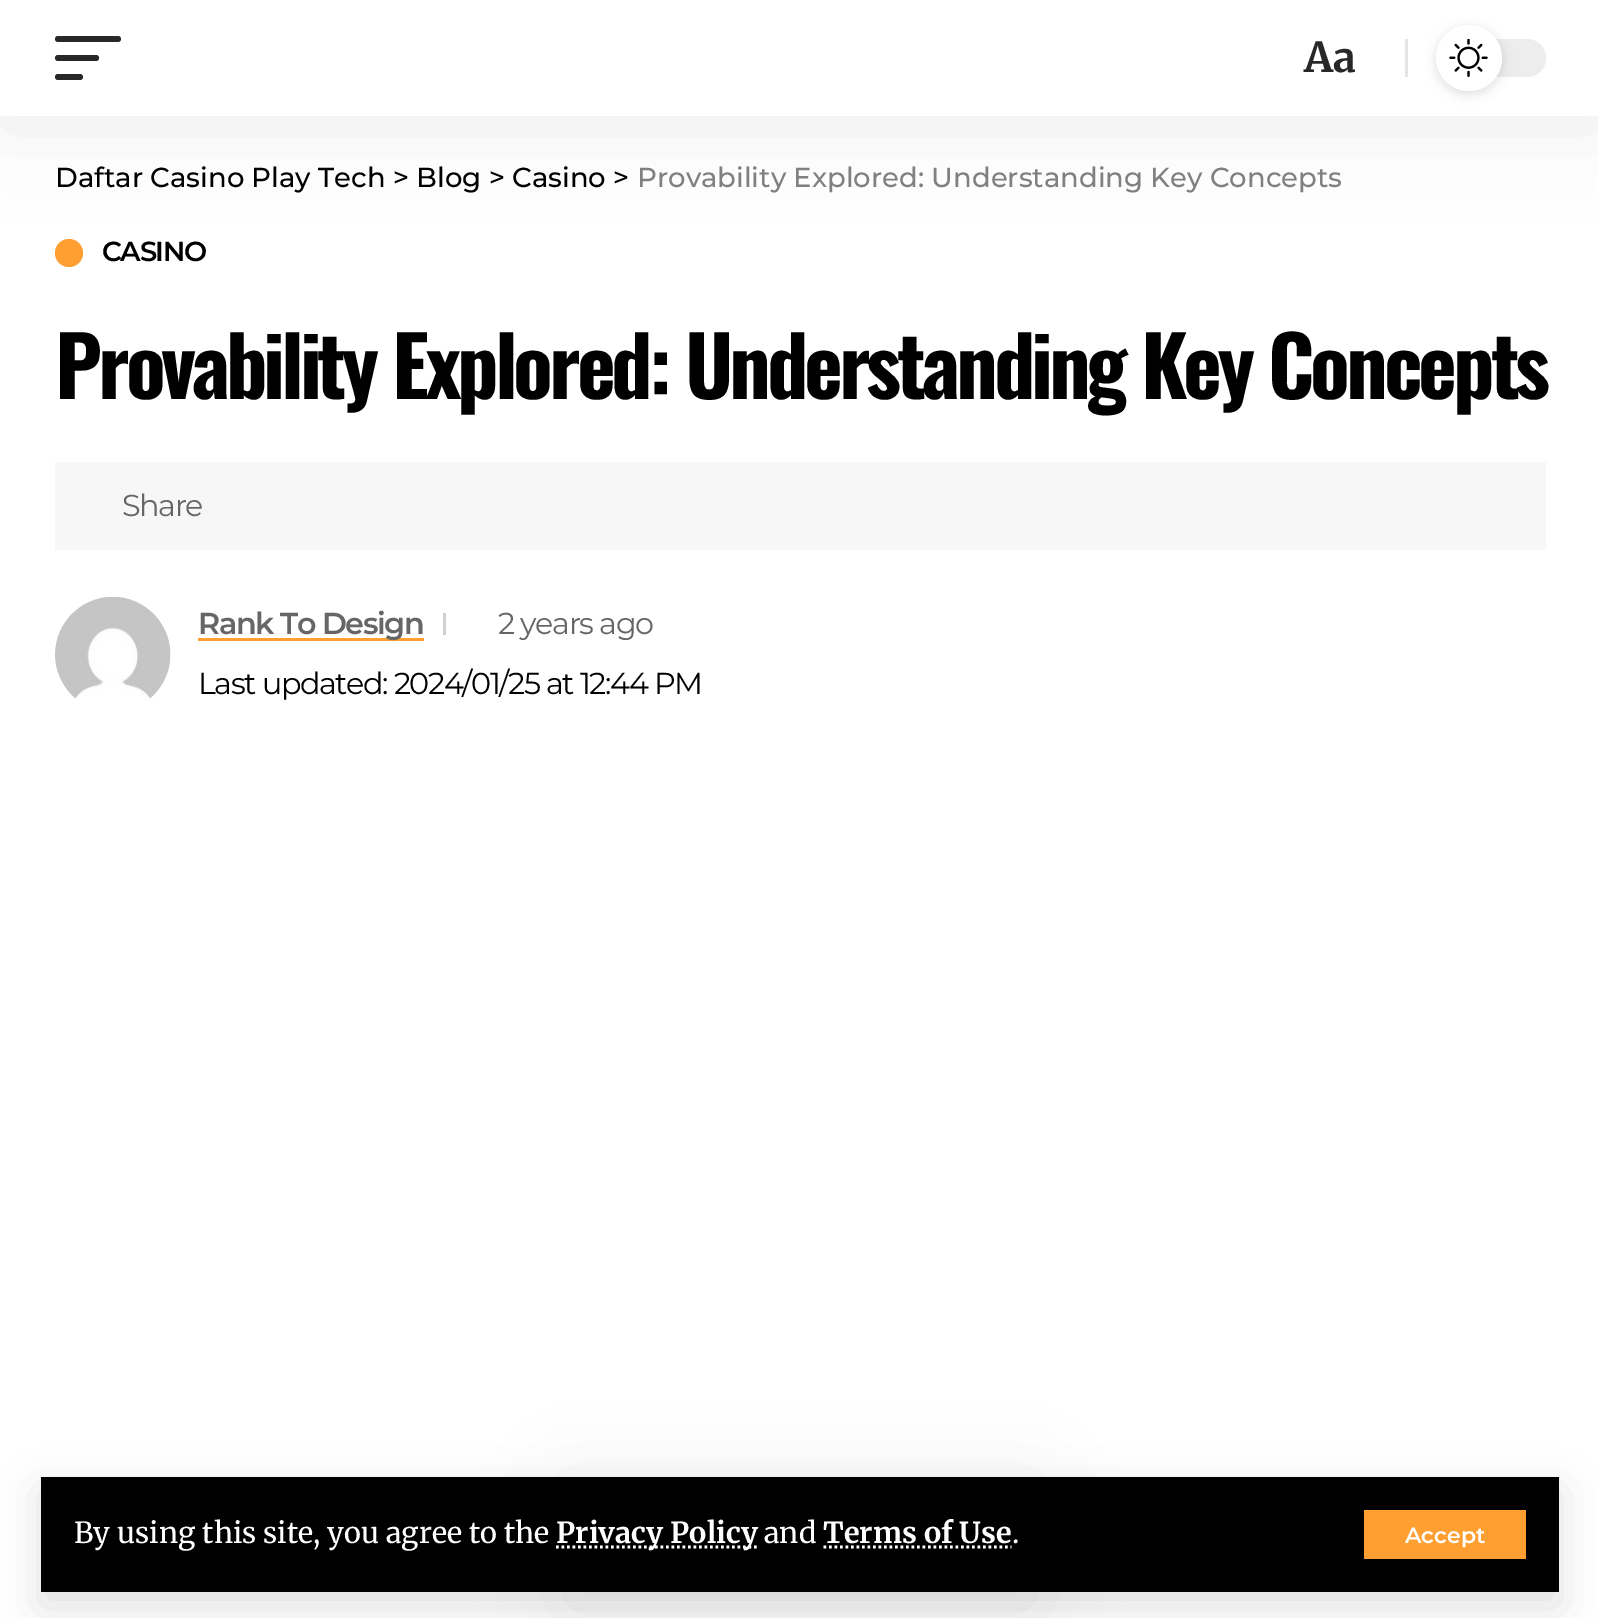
%!PS
<< /PageSize [1598 1618] /PageUsesTransparency true >> setpagedevice
/rgb { dup -16 bitshift 255 div exch dup -8 bitshift 255 and 255 div exch 255 and 255 div setrgbcolor } def
/font { [ exch dup neg 0 0 3 -1 roll 0 0 ] selectfont } def
/text { moveto show } def
/alpha { dup .setfillconstantalpha .setstrokeconstantalpha } def
/circle { newpath 0 360 arc closepath } def
/roundrect { 5 dict begin { /r /h /w /y /x } { exch def } forall
  x r add y moveto x w add y 2 copy h add r arct x w add y h add x 1 index r arct
  x y h add x y r arct x y 2 copy exch w add exch r arct closepath end } def
/shadow { 12 dict begin { /a /b /q /h /w /y /x } { exch def } forall gsave /was 0 def
  9 -2 -9 { dup b mul 4 div /e exch def 1 sub .425 mul 2.718 exch exp 1 add a .99 .min exch div /now exch def
    1 1 now sub 1 was sub div sub alpha /was now def
    w h .min e 2 mul add 0 gt { x e sub y e sub w e 2 mul add h e 2 mul add
      q e add b .6 mul add w h .min 2 div e add .min 0 .max roundrect fill } if } for grestore end } def
/picture { 5 dict begin { /h /w /y /x /name } { exch def } forall
  gsave x y translate w h scale
  w h 8 [w 0 0 h 0 0] name (r) file false 3 colorimage grestore end } def
0 .pushpdf14devicefilter
0 1618 translate 1 -1 scale
4 setmiterlimit
/s1 { /Merriweather-Bold 41 font 16#282828 rgb } def
/s2 { /Merriweather-Regular 28.9 font 16#FFFFFF rgb } def
/s3 { /Merriweather-Bold 28.9 font 16#FFFFFF rgb } def
/s4 { /Montserrat-SemiBold 22 font 16#FFFFFF rgb } def
/s5 { /Montserrat-Medium 27.5 font 16#000000 rgb } def
/s6 { /Montserrat-Medium 27.5 font 16#808080 rgb } def
16#FFFFFF rgb
0 0 1598 1618 rectfill
16#FF9F31 rgb
69 253 14 circle fill
16#000000 rgb
0 11 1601 116 0 41 0.07 shadow
16#FFFFFF rgb
0 0 1598 116 rectfill
16#282828 rgb
55 36 66 6 3 roundrect fill
55 55 44 6 3 roundrect fill
55 74 28 6 3 roundrect fill
s1
(Aa) 1304 72 text
16#E4E4E4 rgb
1405 39 3 38 rectfill
16#EDEDED rgb
1436 39 110 38 19 roundrect fill
16#000000 rgb
1436 28 66 66 33 5.5 0.12 shadow
16#FFFFFF rgb
1469 58 33 circle fill
(pic1.raw) 1449 39 39 38 picture
16#000000 rgb
41 1491 1518 115 0 20.5 0.12 shadow
569 1491 462 115 0 41 0.07 shadow
41 1477 1518 115 rectfill
s2
(By using this site, you agree to the) 74 1543 text
2.8 setlinewidth
[2.75 2.75] 0 setdash
556 1547 moveto 757.5 1547 lineto stroke
s3
(Privacy Policy) 556 1543 text
s2
(and) 764 1543 text
s3
(Terms of Use) 823 1543 text
823.5 1547 moveto 1011.5 1547 lineto stroke
s2
(.) 1012 1543 text
16#FF9F31 rgb
1364 1510 162 49 rectfill
s4
(Accept) 1405 1543 text
s5
(Daftar Casino Play Tech > Blog > Casino >) 55 187 text
s6
(Provability Explored: Understanding Key Concepts) 637 187 text
/Montserrat-SemiBold 27.5 font
16#000000 rgb
102 261 moveto -1.4 0 (CASINO) ashow
/Oswald-Bold 82.5 font
55 399 moveto -4.1 0 (Provability Explored: Understanding Key Concepts) ashow
16#F7F7F7 rgb
55 462 1491 88 rectfill
/Montserrat-Regular 30.25 font
16#666666 rgb
122 516 moveto -1.4 0 (Share) ashow
(pic2.raw) 55 597 116 102 picture
16#FF9F31 rgb
198 638 226 3 rectfill
/Montserrat-SemiBold 30.25 font
16#666666 rgb
198 634 moveto -1.4 0 (Rank To Design) ashow
16#D1D1D1 rgb
443 613 3 22 rectfill
/Montserrat-Regular 30.25 font
16#666666 rgb
498 634 moveto -1.4 0 (2 years ago) ashow
16#000000 rgb
198 694 moveto -1.4 0 (Last updated: 2024/01/25 at 12:44 PM) ashow
.poppdf14devicefilter showpage
